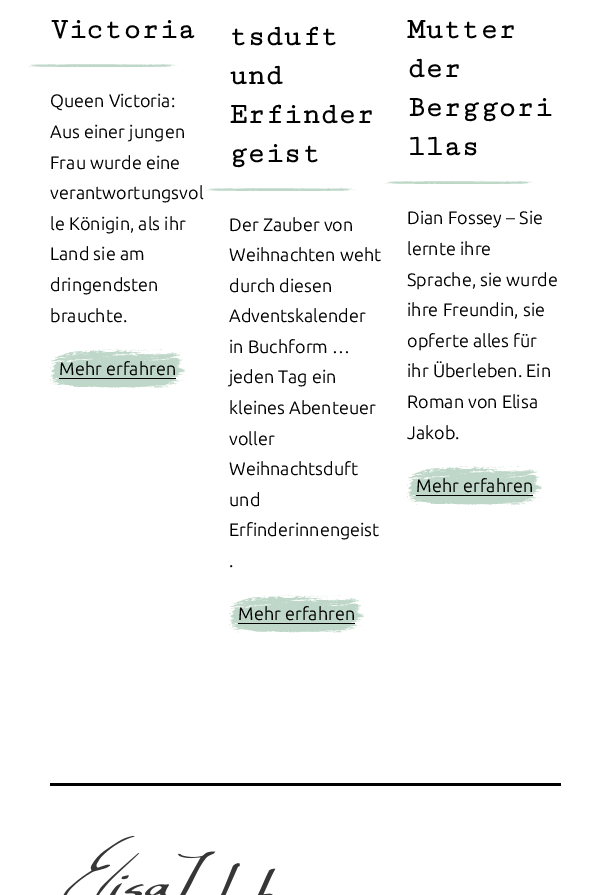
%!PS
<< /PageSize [611 895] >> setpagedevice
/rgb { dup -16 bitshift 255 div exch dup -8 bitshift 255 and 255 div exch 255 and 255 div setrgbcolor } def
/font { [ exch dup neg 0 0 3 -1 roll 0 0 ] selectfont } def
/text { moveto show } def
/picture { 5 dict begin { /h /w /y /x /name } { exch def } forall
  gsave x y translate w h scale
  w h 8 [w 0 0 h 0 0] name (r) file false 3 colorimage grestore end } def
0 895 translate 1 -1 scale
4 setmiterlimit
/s1 { /CutiveMono-Bold 30 font 16#000000 rgb } def
/s2 { /Ubuntu-Regular 18 font 16#000000 rgb } def
16#FFFFFF rgb
0 0 611 895 rectfill
s1
(Victoria) 50 38 text
(pic1.raw) 28 64 150 3 picture
s2
(Queen Victoria:) 50 107 text
(Aus einer jungen) 50 138 text
(Frau wurde eine) 50 169 text
(verantwortungsvol) 50 199 text
(le Königin, als ihr) 50 230 text
(Land sie am) 50 260 text
(dringendsten) 50 291 text
(brauchte.) 50 322 text
(pic2.raw) 50 349 135 39 picture
(Mehr erfahren) 59 375 text
59 378 117 1 rectfill
s1
(tsduft) 229 45 text
(und) 229 84 text
(Erfinder) 229 123 text
(geist) 229 162 text
(pic3.raw) 206 188 150 3 picture
s2
(Der Zauber von) 229 231 text
(Weihnachten weht) 229 261 text
(durch diesen) 229 292 text
(Adventskalender) 229 322 text
(in Buchform …) 229 353 text
(jeden Tag ein) 229 383 text
(kleines Abenteuer) 229 414 text
(voller) 229 445 text
(Weihnachtsduft) 229 475 text
(und) 229 506 text
(Erfinderinnengeist) 229 536 text
(.) 229 567 text
(pic4.raw) 229 595 135 38 picture
(Mehr erfahren) 238 620 text
238 623 117 1 rectfill
s1
(Mutter) 407 38 text
(der) 407 77 text
(Berggori) 407 116 text
(llas) 407 155 text
(pic3.raw) 385 181 150 3 picture
s2
(Dian Fossey – Sie) 407 224 text
(lernte ihre) 407 255 text
(Sprache, sie wurde) 407 286 text
(ihre Freundin, sie) 407 316 text
(opferte alles für) 407 347 text
(ihr Überleben. Ein) 407 377 text
(Roman von Elisa) 407 408 text
(Jakob.) 407 439 text
(pic5.raw) 407 466 135 39 picture
(Mehr erfahren) 416 492 text
416 495 117 1 rectfill
50 783 511 3 rectfill
(pic6.raw) 63 835 213 60 picture
showpage
